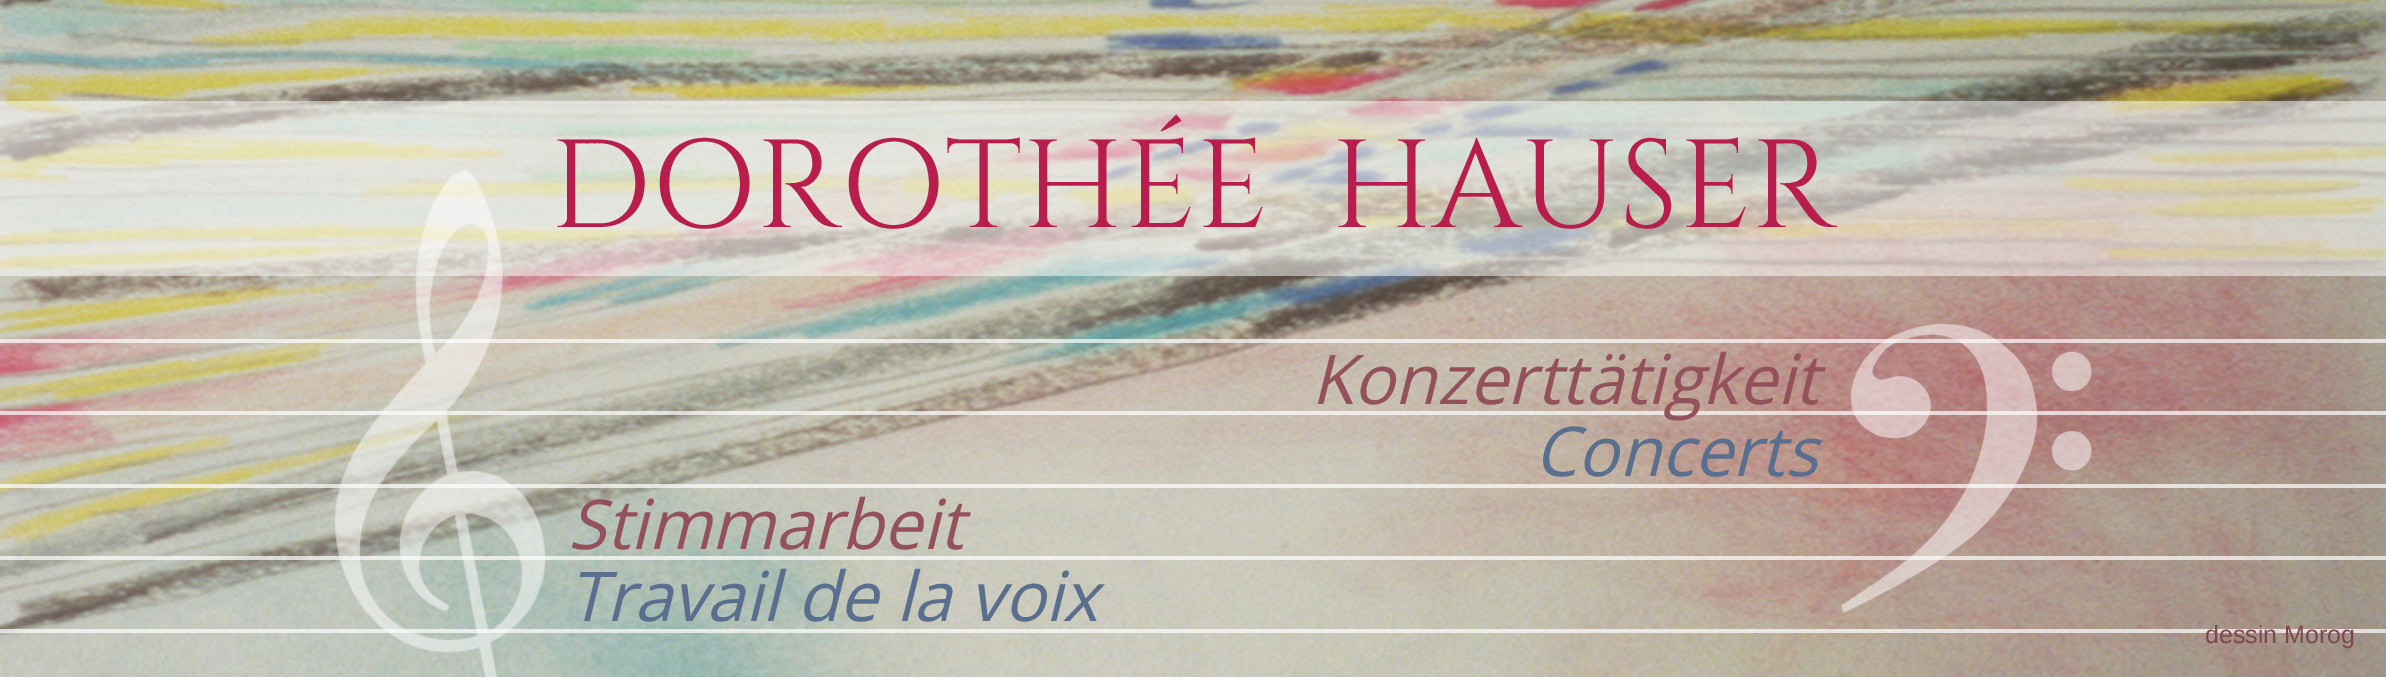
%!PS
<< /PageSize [2386 677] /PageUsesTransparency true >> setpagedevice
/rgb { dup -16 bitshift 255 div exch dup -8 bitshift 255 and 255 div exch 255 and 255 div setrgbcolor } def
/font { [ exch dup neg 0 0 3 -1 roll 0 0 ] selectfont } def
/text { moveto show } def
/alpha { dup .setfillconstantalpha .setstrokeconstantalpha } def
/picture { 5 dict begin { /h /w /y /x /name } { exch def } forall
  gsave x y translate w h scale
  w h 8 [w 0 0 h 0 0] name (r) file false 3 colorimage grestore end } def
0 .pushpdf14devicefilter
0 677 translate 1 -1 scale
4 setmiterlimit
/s1 { /Cinzel-Regular 125 font 16#B71E4D rgb } def
/s2 { /OpenSans-Italic 68.75 font 16#92515B rgb } def
/s3 { /OpenSans-Italic 68.75 font 16#5A6E8D rgb } def
/s4 { /LiberationSans-Regular 25 font 16#7E464E rgb } def
16#FFFFFF rgb
0 0 2386 677 rectfill
(pic1.raw) 0 0 2386 677 picture
0.5 alpha
0 101 2386 175 rectfill
1 alpha
s1
(DOROTHÉE  HAUSER) 550 227 text
0.7 alpha
16#FFFFFF rgb
0 339 2386 4 rectfill
0 411 2386 4 rectfill
0 484 2386 4 rectfill
0 556 2386 4 rectfill
0 629 2386 4 rectfill
1 alpha
(pic2.raw) 335 170 211 507 picture
s2
(Konzerttätigkeit) 1311 404 text
(pic3.raw) 1841 324 251 289 picture
s3
(Concerts) 1534 476 text
s2
(Stimmarbeit) 568 549 text
s3
(Travail de la voix) 568 621 text
s4
(dessin Morog) 2205 643 text
.poppdf14devicefilter showpage
